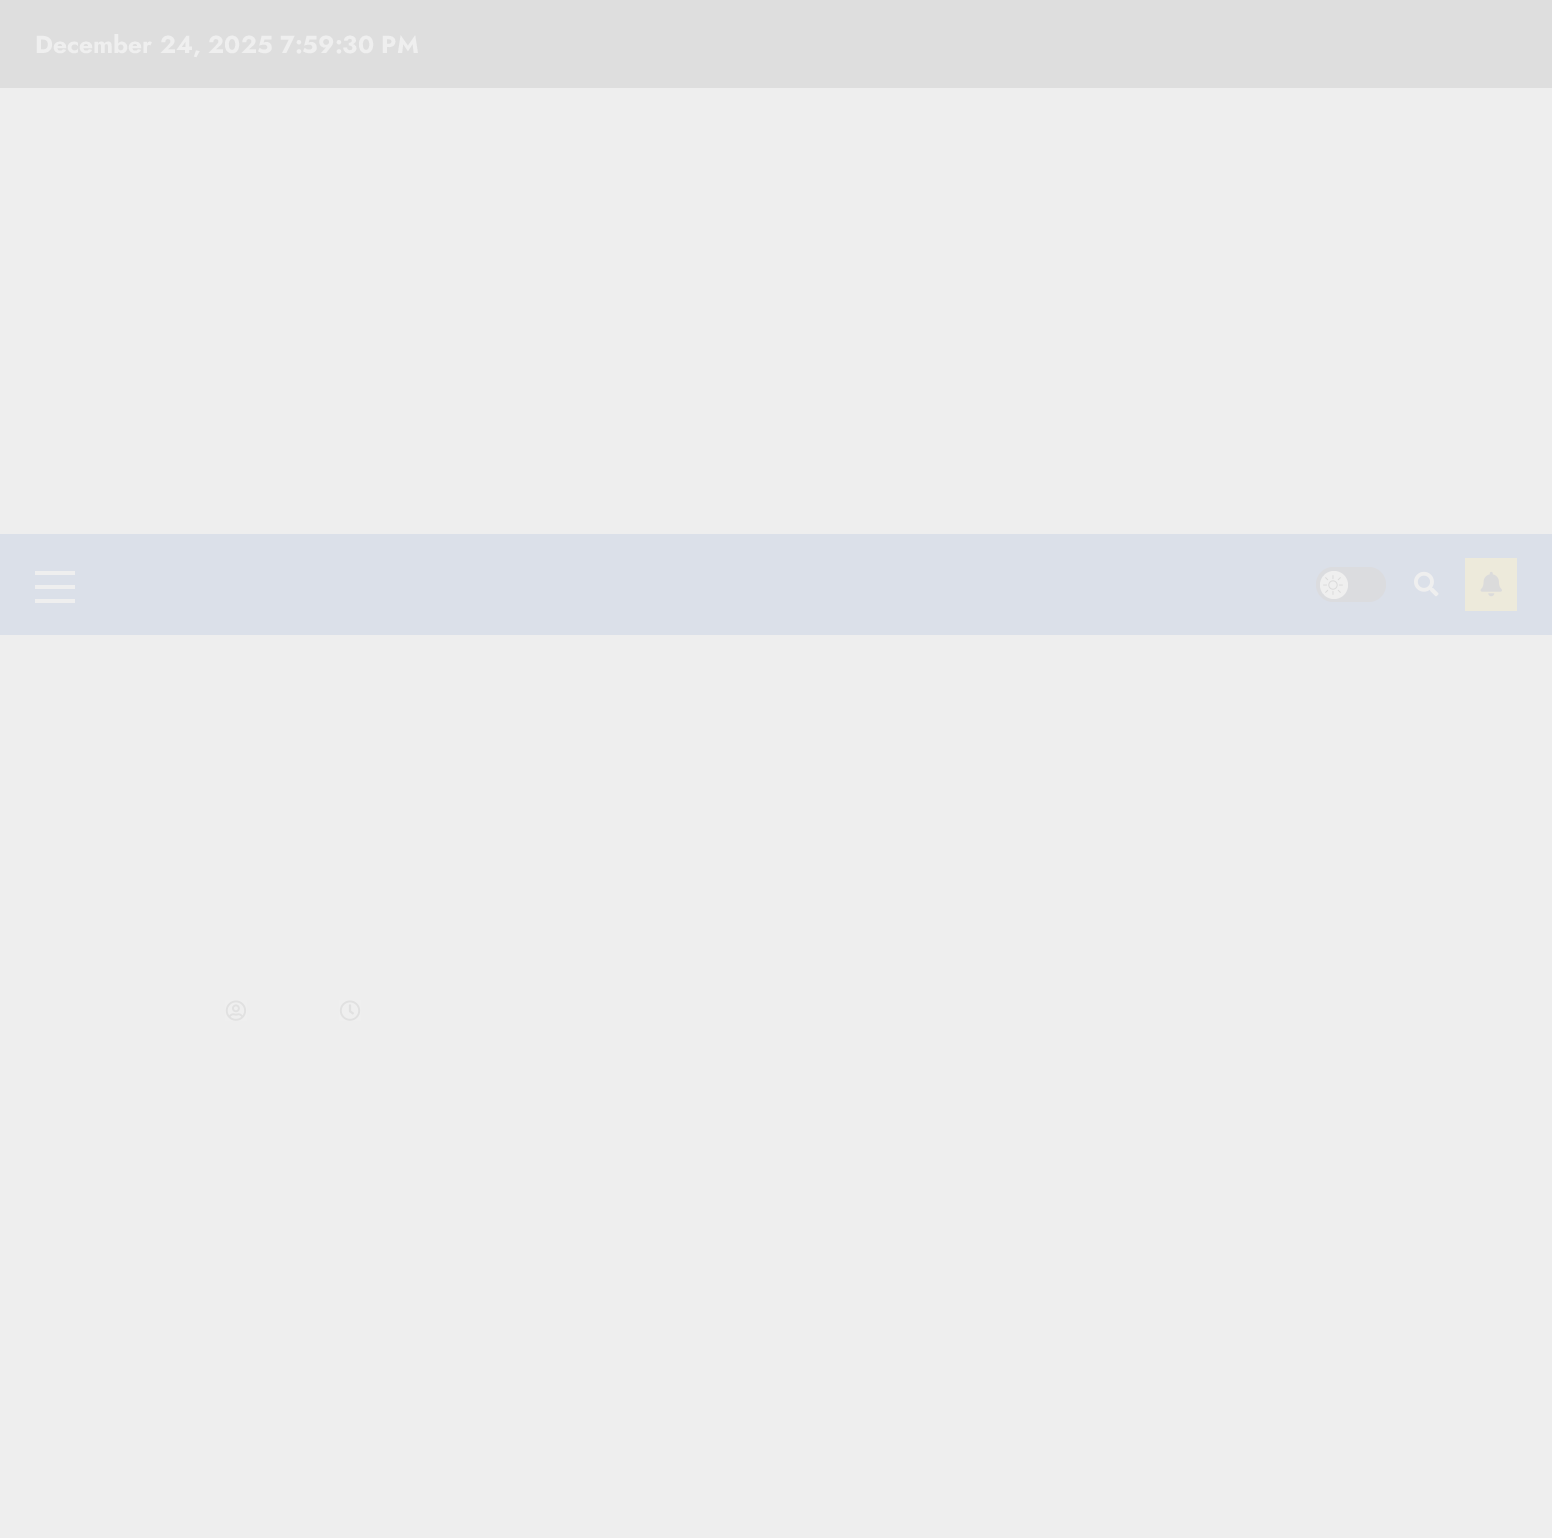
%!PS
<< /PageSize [1552 1538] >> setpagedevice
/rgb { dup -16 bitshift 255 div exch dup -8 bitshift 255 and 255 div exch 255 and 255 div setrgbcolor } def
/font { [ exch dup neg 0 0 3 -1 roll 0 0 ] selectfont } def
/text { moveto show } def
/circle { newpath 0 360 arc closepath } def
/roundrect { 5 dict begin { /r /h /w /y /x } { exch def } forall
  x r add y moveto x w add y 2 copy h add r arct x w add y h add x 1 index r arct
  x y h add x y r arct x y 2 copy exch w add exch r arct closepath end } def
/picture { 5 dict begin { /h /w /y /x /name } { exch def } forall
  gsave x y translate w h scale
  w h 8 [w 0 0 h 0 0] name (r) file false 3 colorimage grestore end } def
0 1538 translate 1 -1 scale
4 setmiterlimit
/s1 { /Jost-Bold 24.5 font 16#EFEFEF rgb } def
16#EEEEEE rgb
0 0 1552 1538 rectfill
16#DEDEDE rgb
0 0 1552 88 rectfill
s1
(December 24, 2025 7:59:30 PM) 35 53 text
16#DBE0E9 rgb
0 534 1552 101 rectfill
16#EFEFEF rgb
35 585 40 4 rectfill
35 571 40 4 rectfill
35 599 40 4 rectfill
16#DBDCDF rgb
1316 567 70 35 17.5 roundrect fill
16#EFEFEF rgb
1334 585 14 circle fill
(pic1.raw) 1323 575 20 20 picture
(pic2.raw) 1414 571 25 26 picture
16#EDEADB rgb
1465 558 52 53 rectfill
(pic3.raw) 1480 571 22 26 picture
(pic4.raw) 225 1000 22 21 picture
(pic5.raw) 339 1000 22 21 picture
showpage
